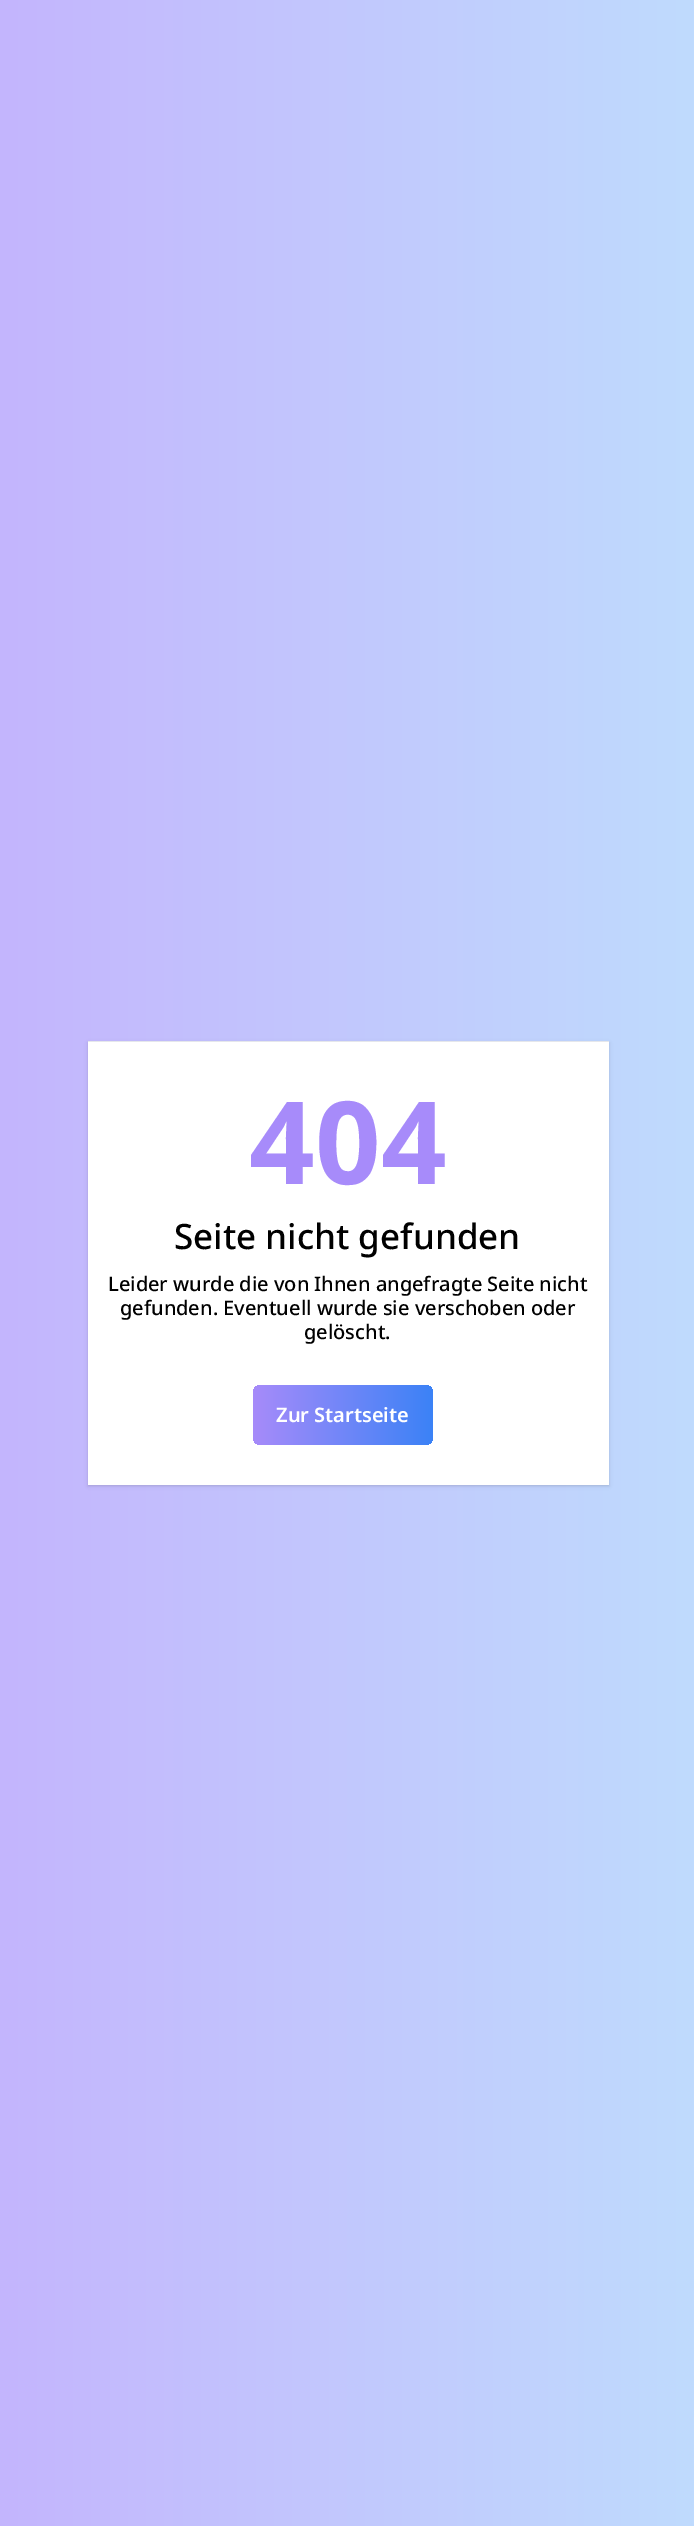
%!PS
<< /PageSize [694 2526] /PageUsesTransparency true >> setpagedevice
/rgb { dup -16 bitshift 255 div exch dup -8 bitshift 255 and 255 div exch 255 and 255 div setrgbcolor } def
/font { [ exch dup neg 0 0 3 -1 roll 0 0 ] selectfont } def
/text { moveto show } def
/alpha { dup .setfillconstantalpha .setstrokeconstantalpha } def
/roundrect { 5 dict begin { /r /h /w /y /x } { exch def } forall
  x r add y moveto x w add y 2 copy h add r arct x w add y h add x 1 index r arct
  x y h add x y r arct x y 2 copy exch w add exch r arct closepath end } def
/shadow { 12 dict begin { /a /b /q /h /w /y /x } { exch def } forall gsave /was 0 def
  9 -2 -9 { dup b mul 4 div /e exch def 1 sub .425 mul 2.718 exch exp 1 add a .99 .min exch div /now exch def
    1 1 now sub 1 was sub div sub alpha /was now def
    w h .min e 2 mul add 0 gt { x e sub y e sub w e 2 mul add h e 2 mul add
      q e add b .6 mul add w h .min 2 div e add .min 0 .max roundrect fill } if } for grestore end } def
0 .pushpdf14devicefilter
0 2526 translate 1 -1 scale
4 setmiterlimit
/s1 { /NotoSans-Bold 115 font 16#A78BFA rgb } def
/s2 { /NotoSans-Medium 35 font 16#000000 rgb } def
/s3 { /NotoSans-Medium 20 font 16#000000 rgb } def
/s4 { /NotoSans-SemiBold 20 font 16#FFFFFF rgb } def
16#FFFFFF rgb
0 0 694 2526 rectfill
gsave 0 0 moveto 694 0 lineto 694 2526 lineto 0 2526 lineto closepath clip newpath
<< /ShadingType 2 /ColorSpace /DeviceRGB /Coords [0 1263 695 1263] /Extend [true true] /Function << /FunctionType 2 /Domain [0 1] /C0 [0.769 0.71 0.992] /C1 [0.749 0.859 0.996] /N 1 >> >> shfill grestore
16#000000 rgb
88 1043 521 443 0 1 0.06 shadow
88 1043 521 443 0 2 0.1 shadow
16#FFFFFF rgb
88 1042 521 443 rectfill
16#E5E7EB rgb
88 1041 521 1 rectfill
s1
(404) 249 1184 text
s2
(Seite nicht gefunden) 174 1249 text
s3
(Leider wurde die von Ihnen angefragte Seite nicht) 108 1291 text
(gefunden. Eventuell wurde sie verschoben oder) 120 1315 text
(gelöscht.) 304 1339 text
gsave 253 1385 180 60 8 roundrect clip newpath
<< /ShadingType 2 /ColorSpace /DeviceRGB /Coords [253 1415 433 1415] /Extend [true true] /Function << /FunctionType 2 /Domain [0 1] /C0 [0.655 0.545 0.98] /C1 [0.231 0.51 0.965] /N 1 >> >> shfill grestore
s4
(Zur Startseite) 276 1422 text
.poppdf14devicefilter showpage
